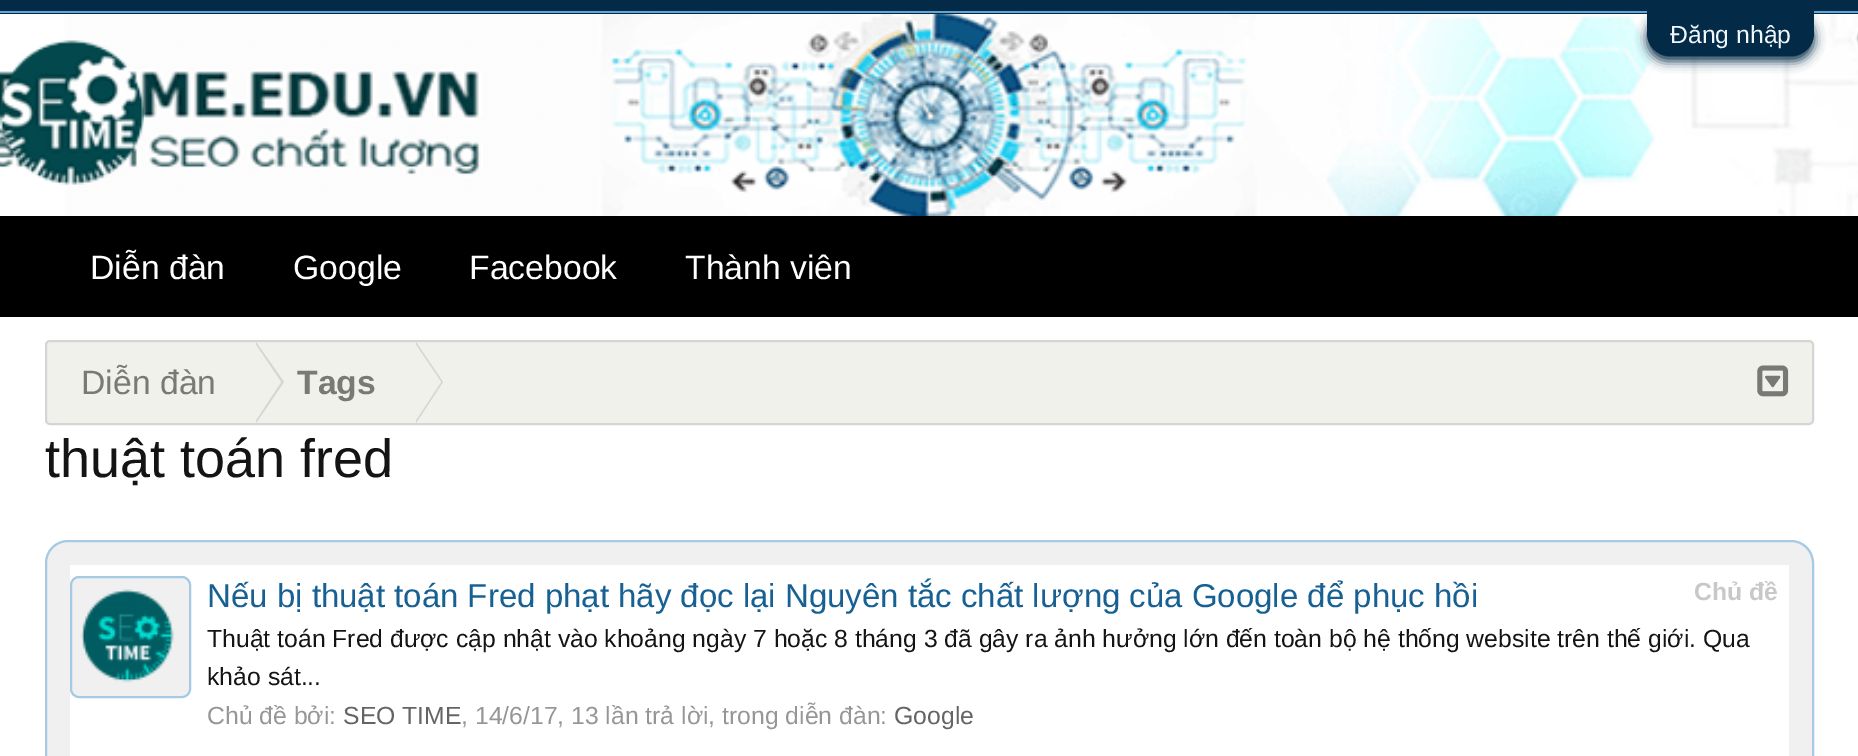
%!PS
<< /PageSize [1858 756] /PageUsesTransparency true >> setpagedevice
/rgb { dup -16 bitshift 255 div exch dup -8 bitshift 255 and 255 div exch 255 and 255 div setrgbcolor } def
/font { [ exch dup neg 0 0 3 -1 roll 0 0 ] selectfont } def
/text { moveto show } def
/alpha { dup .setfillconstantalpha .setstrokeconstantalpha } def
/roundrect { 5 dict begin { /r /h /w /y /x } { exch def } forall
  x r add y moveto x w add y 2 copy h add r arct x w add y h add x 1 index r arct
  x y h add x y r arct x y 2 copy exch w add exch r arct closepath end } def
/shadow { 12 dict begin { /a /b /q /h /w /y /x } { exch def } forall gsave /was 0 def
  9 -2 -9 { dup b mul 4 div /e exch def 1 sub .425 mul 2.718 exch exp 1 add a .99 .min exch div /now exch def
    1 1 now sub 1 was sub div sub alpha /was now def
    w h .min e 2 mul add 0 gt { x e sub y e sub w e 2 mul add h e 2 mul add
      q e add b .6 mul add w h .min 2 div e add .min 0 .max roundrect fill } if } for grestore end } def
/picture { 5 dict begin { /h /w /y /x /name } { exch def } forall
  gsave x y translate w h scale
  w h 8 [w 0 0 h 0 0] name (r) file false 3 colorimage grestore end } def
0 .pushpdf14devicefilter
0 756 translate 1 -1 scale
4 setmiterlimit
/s1 { /LiberationSans-Regular 24.75 font 16#F0F7FC rgb } def
/s2 { /LiberationSans-Regular 33.75 font 16#FFFFFF rgb } def
/s3 { /LiberationSans-Regular 33.75 font 16#797976 rgb } def
/s4 { /LiberationSans-Bold 33.75 font 16#797976 rgb } def
/s5 { /LiberationSans-Regular 54 font 16#141414 rgb } def
/s6 { /LiberationSans-Regular 33 font 16#176093 rgb } def
/s7 { /LiberationSans-Bold 24.75 font 16#C8C8C8 rgb } def
/s8 { /LiberationSans-Regular 24.75 font 16#141414 rgb } def
/s9 { /LiberationSans-Regular 24.75 font 16#969696 rgb } def
/s10 { /LiberationSans-Regular 24.75 font 16#646464 rgb } def
16#FFFFFF rgb
0 0 1858 756 rectfill
16#032A46 rgb
0 0 1858 14 rectfill
16#65A5D1 rgb
0 11 1858 2 rectfill
(pic1.raw) 0 14 1858 202 picture
16#032A46 rgb
1647 16 167 45 22.5 5.5 1 shadow
1647 11 moveto 1814 11 lineto 1814 33.5 lineto 1814 46 1804 56 1791.5 56 curveto 1669.5 56 lineto 1657 56 1647 46 1647 33.5 curveto closepath fill
s1
(Đăng nhập) 1670 43 text
(pic2.raw) 0 40 144 145 picture
16#000000 rgb
0 216 1858 101 rectfill
s2
(Diễn đàn) 90 279 text
(Google) 293 279 text
(Facebook) 469 279 text
(Thành viên) 685 279 text
16#F1F1EC rgb
46 341 1767 83 4 roundrect gsave fill grestore
16#D5D5D5 rgb
2 setlinewidth
stroke
s3
(Diễn đàn) 81 394 text
16#D5D5D5 rgb
256 423 moveto 256 342 lineto 284 382 lineto closepath fill
16#F1F1EC rgb
254 423 moveto 254 342 lineto 281 382 lineto closepath fill
s4
(Tags) 297 394 text
16#D5D5D5 rgb
416 423 moveto 416 342 lineto 443 382 lineto closepath fill
16#F1F1EC rgb
414 423 moveto 414 342 lineto 441 382 lineto closepath fill
(pic3.raw) 1757 365 32 32 picture
s5
(thuật toán fred) 45 477 text
16#F0F0F0 rgb
46 541 1767 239 22 roundrect gsave fill grestore
16#A5CAE4 rgb
stroke
16#FFFFFF rgb
70 565 1719 191 rectfill
16#F0F0F0 rgb
71 577 119 120 8 roundrect gsave fill grestore
16#A5CAE4 rgb
stroke
(pic4.raw) 80 589 94 95 picture
s6
(Nếu bị thuật toán Fred phạt hãy đọc lại Nguyên tắc chất lượng của Google để phục hồi) 207 607 text
s7
(Chủ đề) 1694 600 text
s8
(Thuật toán Fred được cập nhật vào khoảng ngày 7 hoặc 8 tháng 3 đã gây ra ảnh hưởng lớn đến toàn bộ hệ thống website trên thế giới. Qua) 207 647 text
(khảo sát...) 207 685 text
s9
(Chủ đề bởi:) 207 724 text
s10
(SEO TIME) 343 724 text
s9
(, 14/6/17, 13 lần trả lời, trong diễn đàn:) 461 724 text
s10
(Google) 894 724 text
.poppdf14devicefilter showpage
